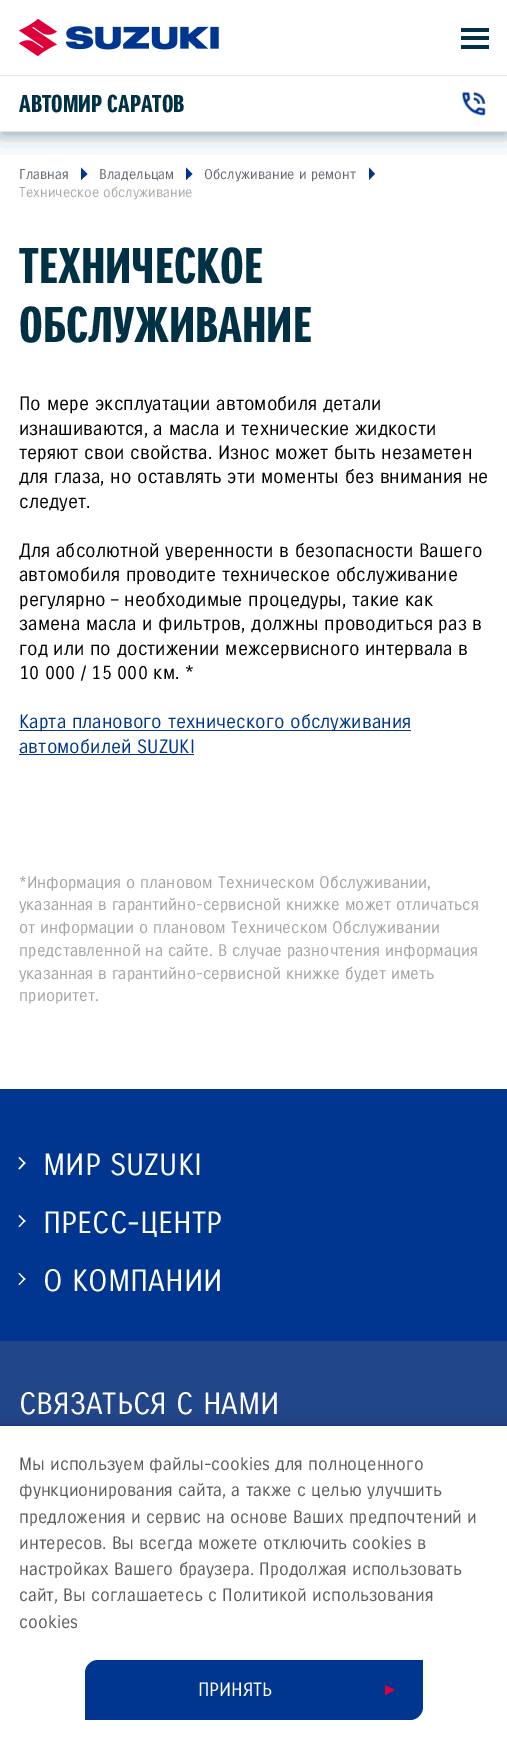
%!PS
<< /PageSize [507 1744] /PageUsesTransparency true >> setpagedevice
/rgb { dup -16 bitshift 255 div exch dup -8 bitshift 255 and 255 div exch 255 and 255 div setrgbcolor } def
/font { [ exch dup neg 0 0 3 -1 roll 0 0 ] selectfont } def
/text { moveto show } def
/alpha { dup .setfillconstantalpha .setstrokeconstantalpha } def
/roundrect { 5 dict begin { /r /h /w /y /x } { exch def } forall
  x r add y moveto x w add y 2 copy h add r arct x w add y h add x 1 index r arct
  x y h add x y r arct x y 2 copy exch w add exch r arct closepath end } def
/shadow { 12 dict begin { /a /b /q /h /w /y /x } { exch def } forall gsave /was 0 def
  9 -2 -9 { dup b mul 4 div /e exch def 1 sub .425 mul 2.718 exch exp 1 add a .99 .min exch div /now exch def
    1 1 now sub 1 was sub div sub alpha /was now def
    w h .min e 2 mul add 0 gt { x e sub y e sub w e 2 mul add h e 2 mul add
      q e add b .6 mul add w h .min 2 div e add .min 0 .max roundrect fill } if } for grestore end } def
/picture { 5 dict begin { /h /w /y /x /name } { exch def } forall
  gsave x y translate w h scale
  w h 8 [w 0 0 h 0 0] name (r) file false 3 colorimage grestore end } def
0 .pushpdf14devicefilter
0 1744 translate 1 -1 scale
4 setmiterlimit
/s1 { /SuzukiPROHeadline-Bold 23.75 font 16#003145 rgb } def
/s2 { /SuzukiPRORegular-Regular 13.75 font 16#636A73 rgb } def
/s3 { /SuzukiPRORegular-Regular 13.75 font 16#AAAAAA rgb } def
/s4 { /SuzukiPROHeadline-Bold 48.75 font 16#003145 rgb } def
/s5 { /SuzukiPRORegular-Regular 18.75 font 16#000000 rgb } def
/s6 { /SuzukiPRORegular-Regular 18.75 font 16#00368F rgb } def
/s7 { /SuzukiPRORegular-Regular 16.25 font 16#A3A3A3 rgb } def
/s8 { /SuzukiPRORegular-Regular 30 font 16#FFFFFF rgb } def
/s9 { /SuzukiPRORegular-Regular 17.5 font 16#5B5C5D rgb } def
/s10 { /SuzukiPRORegular-Regular 18.75 font 16#FFFFFF rgb } def
16#FFFFFF rgb
0 0 507 1744 rectfill
16#00368F rgb
81 180 moveto 81 167.5 lineto 87.5 174 lineto closepath fill
186 180 moveto 186 167.5 lineto 192.5 174 lineto closepath fill
369 180 moveto 369 167.5 lineto 375 174 lineto closepath fill
gsave
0 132 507 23 rectclip
16#003145 rgb
0 8 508 131 0 12.5 0.19 shadow
grestore
gsave
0 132 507 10 rectclip
16#003145 rgb
0 5 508 131 0 5 0.2 shadow
grestore
16#E0E6E9 rgb
0 75 507 1 rectfill
(pic1.raw) 19 19 200 37 picture
16#003145 rgb
461 28 28 4 rectfill
461 45 28 4 rectfill
461 36 28 4 rectfill
s1
(АВТОМИР САРАТОВ) 19 112 text
(pic2.raw) 461 91 25 25 picture
16#E0E6E9 rgb
0 131 507 1 rectfill
s2
(Главная) 19 179 text
(Владельцам) 99 179 text
(Обслуживание и ремонт) 204 179 text
s3
(Техническое обслуживание) 19 197 text
s4
(ТЕХНИЧЕСКОЕ) 19 283 text
(ОБСЛУЖИВАНИЕ) 19 342 text
s5
(По мере эксплуатации автомобиля детали) 19 410 text
(изнашиваются, а масла и технические жидкости) 19 435 text
(теряют свои свойства. Износ может быть незаметен) 19 459 text
(для глаза, но оставлять эти моменты без внимания не) 19 483 text
(следует.) 19 508 text
(Для абсолютной уверенности в безопасности Вашего) 19 557 text
(автомобиля проводите техническое обслуживание) 19 581 text
(регулярно – необходимые процедуры, такие как) 19 606 text
(замена масла и фильтров, должны проводиться раз в) 19 630 text
(год или по достижении межсервисного интервала в) 19 655 text
(10 000 / 15 000 км. *) 19 679 text
16#00368F rgb
19 730 392 1 rectfill
(Карта планового технического обслуживания) 19 728 text
(автомобилей SUZUKI) 19 753 text
19 754 175 1 rectfill
s7
(*Информация о плановом Техническом Обслуживании,) 19 888 text
(указанная в гарантийно-сервисной книжке может отличаться) 19 910 text
(от информации о плановом Техническом Обслуживании) 19 933 text
(представленной на сайте. В случае разночтения информация) 19 956 text
(указанная в гарантийно-сервисной книжке будет иметь) 19 979 text
(приоритет.) 19 1001 text
16#00368F rgb
0 1089 507 252 rectfill
16#FFFFFF rgb
18.5 1158 moveto 19.5 1157 lineto 25.5 1163 lineto 24.5 1164 lineto closepath fill
18.5 1168.5 moveto 24.5 1162 lineto 25.5 1163 lineto 19.5 1169.5 lineto closepath fill
s8
(МИР SUZUKI) 43 1175 text
18.5 1216 moveto 19.5 1215 lineto 25.5 1221 lineto 24.5 1222 lineto closepath fill
18.5 1226.5 moveto 24.5 1220 lineto 25.5 1221 lineto 19.5 1227 lineto closepath fill
(ПРЕСС-ЦЕНТР) 43 1233 text
18.5 1273.5 moveto 19.5 1273 lineto 25.5 1279 lineto 24.5 1280 lineto closepath fill
18.5 1284.5 moveto 24.5 1278 lineto 25.5 1279 lineto 19.5 1285 lineto closepath fill
(О КОМПАНИИ) 43 1291 text
16#22468A rgb
0 1341 507 85 rectfill
s8
(СВЯЗАТЬСЯ С НАМИ) 19 1414 text
16#000000 rgb
0 1426 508 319 0 6 0.25 shadow
16#FFFFFF rgb
0 1426 507 318 rectfill
s9
(Мы используем файлы-cookies для полноценного) 19 1470 text
(функционирования сайта, а также с целью улучшить) 19 1496 text
(предложения и сервис на основе Ваших предпочтений и) 19 1523 text
(интересов. Вы всегда можете отключить cookies в) 19 1549 text
(настройках Вашего браузера. Продолжая использовать) 19 1575 text
(сайт, Вы соглашаетесь с Политикой использования) 19 1601 text
(cookies) 19 1628 text
16#00368F rgb
98 1660 moveto 423 1660 lineto 423 1707 lineto 423 1714 417 1720 410 1720 curveto 85 1720 lineto 85 1673 lineto 85 1666 91 1660 98 1660 curveto closepath fill
s10
(ПРИНЯТЬ) 198 1696 text
16#DE0039 rgb
385 1695 moveto 385 1685 lineto 395 1690 lineto closepath fill
.poppdf14devicefilter showpage
